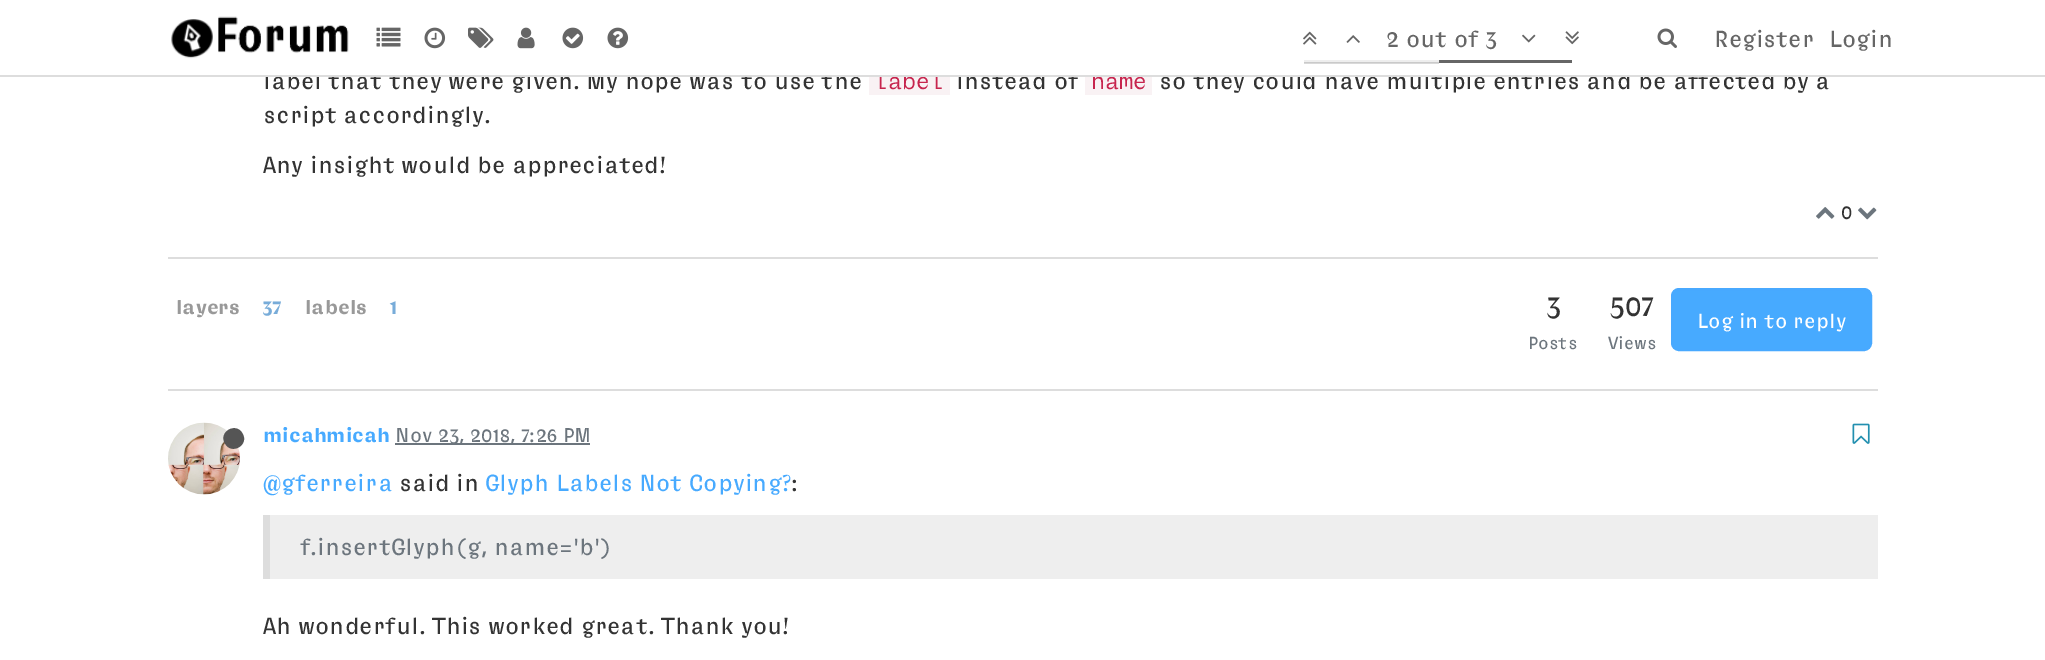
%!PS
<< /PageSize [2045 660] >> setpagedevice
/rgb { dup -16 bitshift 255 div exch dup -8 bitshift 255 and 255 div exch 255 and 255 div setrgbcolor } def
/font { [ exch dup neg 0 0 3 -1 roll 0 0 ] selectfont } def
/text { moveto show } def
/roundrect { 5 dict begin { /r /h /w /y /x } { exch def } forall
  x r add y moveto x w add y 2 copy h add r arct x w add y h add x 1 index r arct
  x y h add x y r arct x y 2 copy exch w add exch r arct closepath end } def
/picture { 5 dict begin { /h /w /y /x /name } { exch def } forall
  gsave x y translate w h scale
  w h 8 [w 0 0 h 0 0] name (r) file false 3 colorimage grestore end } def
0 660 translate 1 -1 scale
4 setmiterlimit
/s1 { /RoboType-Regular 24 font 16#333333 rgb } def
/s2 { /RoboType-Light 24 font 16#C7254E rgb } def
/s3 { /RoboType-Regular 24 font 16#666666 rgb } def
/s4 { /RoboType-Regular 20.5 font 16#333333 rgb } def
/s5 { /RoboType-Bold 20.5 font 16#999999 rgb } def
/s6 { /RoboType-Bold 20.5 font 16#78ACD9 rgb } def
/s7 { /RoboType-Regular 30 font 16#333333 rgb } def
/s8 { /RoboType-Regular 18 font 16#6C757D rgb } def
/s9 { /RoboType-Regular 21 font 16#FFFFFF rgb } def
/s10 { /RoboType-Bold 20.5 font 16#47AAFF rgb } def
/s11 { /RoboType-Regular 20.5 font 16#6C757D rgb } def
/s12 { /RoboType-Regular 24 font 16#47AAFF rgb } def
/s13 { /RoboType-Regular 24 font 16#6C757D rgb } def
16#FFFFFF rgb
0 0 2045 660 rectfill
s1
(label that they were given. My hope was to use the) 263 89 text
16#F9F2F4 rgb
869 77 81 18 rectfill
s2
(label) 874 89 text
s1
(instead of) 956 89 text
(so they could have multiple entries and be affected by a) 1159 89 text
16#FFFFFF rgb
265 71 1523 4 rectfill
16#D9D9D9 rgb
1304 63 135 1 rectfill
16#F9F2F4 rgb
1085 77 67 18 rectfill
s2
(name) 1091 89 text
16#DDDDDD rgb
0 75 2045 2 rectfill
(pic1.raw) 171 16 178 43 picture
(pic2.raw) 376 27 25 20 picture
(pic3.raw) 424 27 22 22 picture
(pic4.raw) 468 27 26 21 picture
(pic5.raw) 517 27 18 22 picture
(pic6.raw) 562 27 22 22 picture
(pic7.raw) 607 27 22 22 picture
(pic8.raw) 1303 31 14 14 picture
(pic9.raw) 1346 35 14 8 picture
s3
(2 out of 3) 1386 47 text
(pic10.raw) 1522 34 14 9 picture
(pic11.raw) 1565 31 14 14 picture
1439 60 133 3 rectfill
16#EEEEEE rgb
1304 60 135 2 rectfill
16#CACACA rgb
1304 62 135 1 rectfill
(pic12.raw) 1657 28 20 20 picture
s3
(Register) 1714 47 text
(Login) 1829 47 text
s1
(script accordingly.) 263 123 text
(Any insight would be appreciated!) 263 173 text
(pic13.raw) 1816 207 19 12 picture
s4
(0) 1841 219 text
(pic14.raw) 1858 207 19 13 picture
16#DDDDDD rgb
168 257 1710 2 rectfill
s5
(layers) 176 314 text
s6
(37) 262 314 text
s5
(labels) 305 314 text
s6
(1) 389 314 text
s7
(3) 1546 316 text
s8
(Posts) 1528 349 text
s7
(507) 1610 316 text
s8
(Views) 1608 349 text
16#47AAFF rgb
1672 289 199 61 7 roundrect gsave fill grestore
16#48A9FF rgb
2 setlinewidth
stroke
s9
(Log in to reply) 1697 328 text
16#DDDDDD rgb
168 389 1710 2 rectfill
(pic15.raw) 168 422 72 73 picture
16#555555 rgb
242.5 433.5 moveto 249.5 445 231.5 455.5 225 443.5 curveto 218 432 236 421.5 242.5 433.5 curveto closepath fill
s10
(micahmicah) 263 442 text
16#6C757D rgb
395 443 195 2 rectfill
s11
(Nov 23, 2018, 7:26 PM) 395 442 text
(pic16.raw) 1852 423 18 21 picture
s12
(@gferreira) 263 491 text
s1
(said in) 399 491 text
s12
(Glyph Labels Not Copying?) 485 491 text
s1
(:) 791 491 text
16#EEEEEE rgb
270 515 1608 64 rectfill
16#DDDDDD rgb
263 515 7 64 rectfill
s13
(f.insertGlyph\(g, name='b'\)) 300 555 text
s1
(Ah wonderful. This worked great. Thank you!) 263 634 text
showpage
